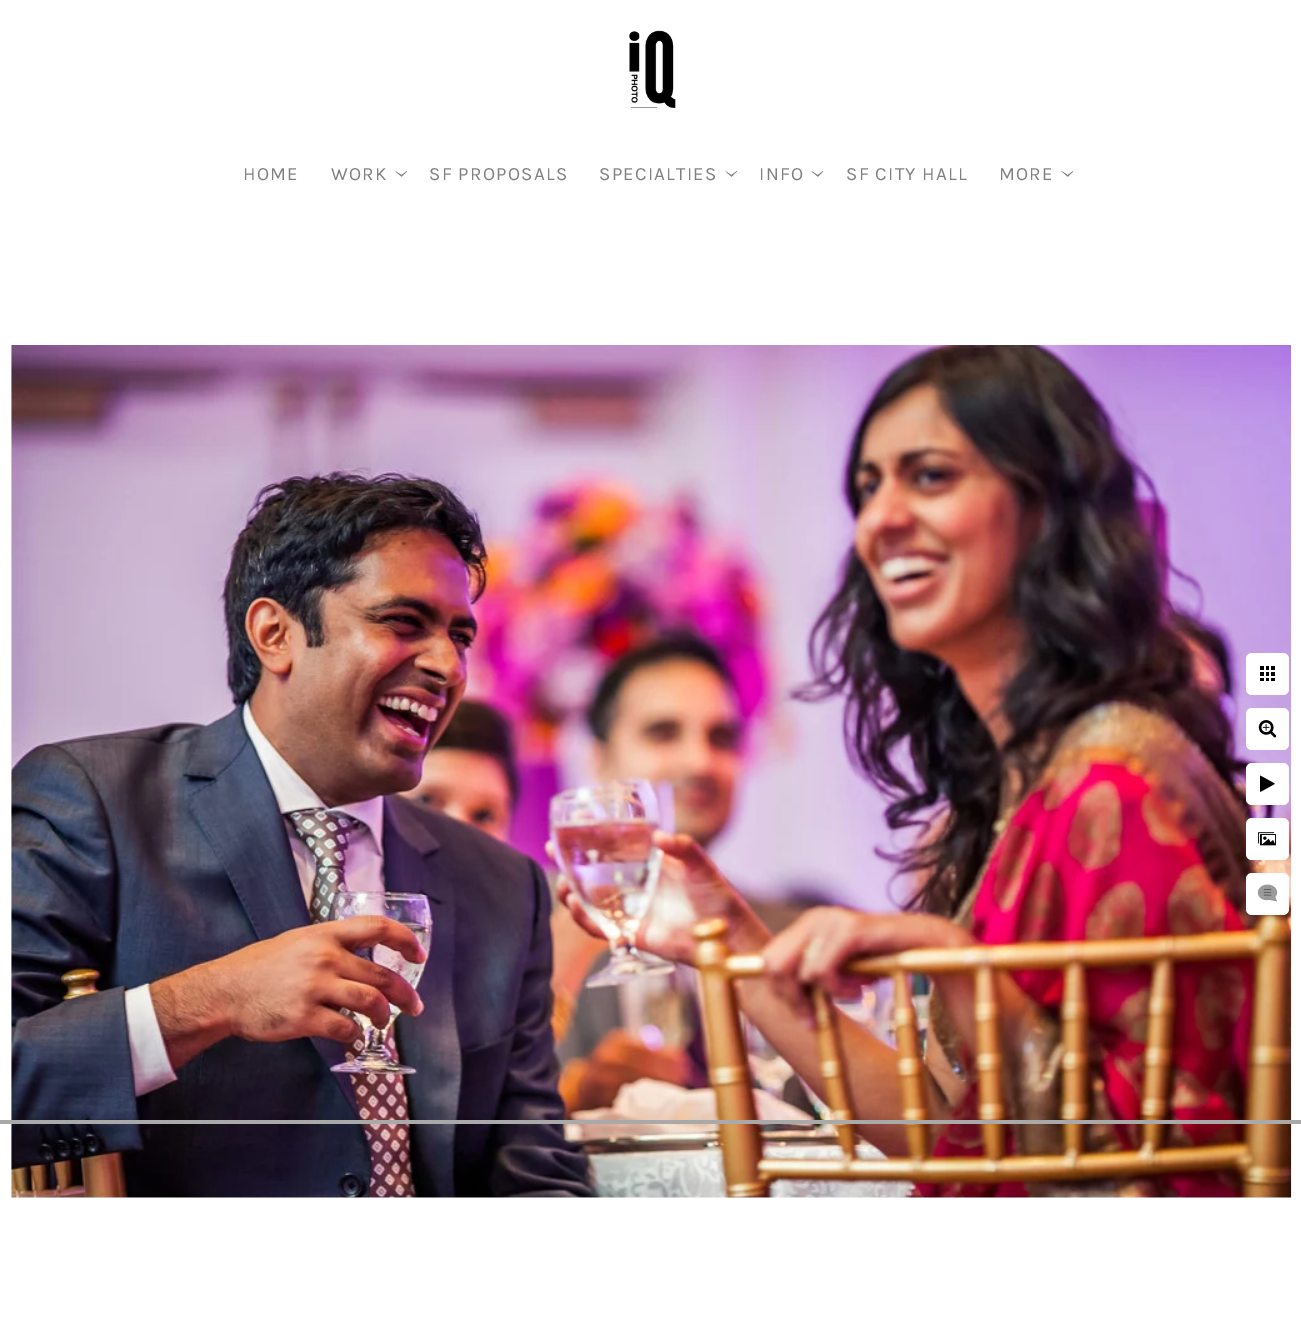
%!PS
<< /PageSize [1301 1343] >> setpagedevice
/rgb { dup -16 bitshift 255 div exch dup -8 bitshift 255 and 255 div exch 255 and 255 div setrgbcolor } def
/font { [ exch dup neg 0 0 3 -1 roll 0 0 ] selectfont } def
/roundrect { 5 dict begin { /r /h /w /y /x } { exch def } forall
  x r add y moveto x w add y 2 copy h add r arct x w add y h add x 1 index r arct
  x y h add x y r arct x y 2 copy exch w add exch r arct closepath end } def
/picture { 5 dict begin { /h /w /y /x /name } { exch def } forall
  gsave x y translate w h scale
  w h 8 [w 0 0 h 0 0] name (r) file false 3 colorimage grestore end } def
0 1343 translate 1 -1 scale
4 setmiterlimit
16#FFFFFF rgb
0 0 1301 1343 rectfill
(pic1.raw) 629 30 47 78 picture
/Karla-Regular 18.75 font
16#808080 rgb
243 180 moveto 1.25 0 (HOME) ashow
331 180 moveto 1.25 0 (WORK) ashow
(pic2.raw) 395 170 13 7 picture
429 180 moveto 1.25 0 (SF PROPOSALS) ashow
599 180 moveto 1.25 0 (SPECIALTIES) ashow
(pic2.raw) 725 170 13 7 picture
759 180 moveto 1.25 0 (INFO) ashow
(pic3.raw) 811 171 13 6 picture
846 180 moveto 1.25 0 (SF CITY HALL) ashow
999 180 moveto 1.25 0 (MORE) ashow
(pic3.raw) 1061 171 13 6 picture
(pic4.raw) 11 345 1281 853 picture
16#FFFFFF rgb
1246 653 43 42 6 roundrect fill
(pic5.raw) 1260 666 15 15 picture
1246 708 43 42 6 roundrect fill
(pic6.raw) 1258 720 19 18 picture
1246 763 43 42 6 roundrect fill
(pic7.raw) 1260 775 15 17 picture
1246 818 43 42 6 roundrect fill
(pic8.raw) 1258 832 18 14 picture
1246 873 43 42 6 roundrect fill
(pic9.raw) 1257 884 21 18 picture
16#A9A9A9 rgb
0 1120 1301 4 rectfill
showpage
